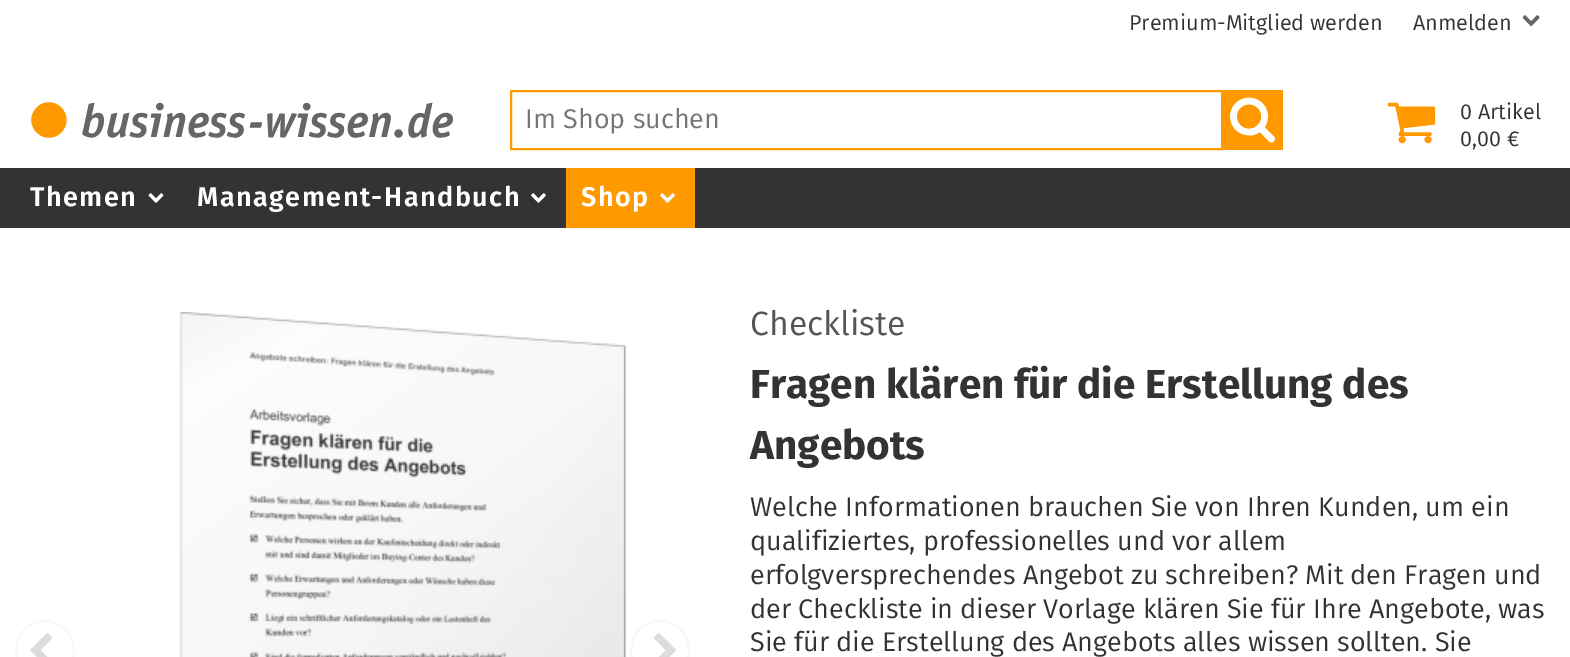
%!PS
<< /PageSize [1570 657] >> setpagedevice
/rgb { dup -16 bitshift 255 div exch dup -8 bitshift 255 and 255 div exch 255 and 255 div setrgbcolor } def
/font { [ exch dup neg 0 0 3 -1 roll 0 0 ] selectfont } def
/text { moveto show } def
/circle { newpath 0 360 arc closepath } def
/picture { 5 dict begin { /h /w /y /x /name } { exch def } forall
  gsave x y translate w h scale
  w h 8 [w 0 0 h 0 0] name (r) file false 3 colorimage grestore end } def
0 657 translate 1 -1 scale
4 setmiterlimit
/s1 { /FiraSans-Regular 21.6 font 16#333333 rgb } def
/s2 { /FiraSans-Regular 27 font 16#757575 rgb } def
/s3 { /FiraSans-Regular 33.75 font 16#555555 rgb } def
/s4 { /FiraSans-Bold 40.5 font 16#333333 rgb } def
/s5 { /FiraSans-Regular 27 font 16#333333 rgb } def
16#FFFFFF rgb
0 0 1570 657 rectfill
s1
(Premium-Mitglied werden) 1129 30 text
(Anmelden) 1413 30 text
(pic1.raw) 1522 15 18 12 picture
(pic2.raw) 31 102 422 36 picture
16#FF9900 rgb
2 setlinewidth
511 91 711 58 rectstroke
s2
(Im Shop suchen) 525 128 text
16#FF9900 rgb
1223 90 60 60 rectfill
(pic3.raw) 1230 97 45 46 picture
(pic4.raw) 1387 102 49 42 picture
s1
(0 Artikel) 1460 119 text
(0,00 €) 1460 146 text
0 168 1570 60 rectfill
/FiraSans-SemiBold 27 font
16#FFFFFF rgb
30 206 moveto 1.5 0 (Themen) ashow
(pic5.raw) 148 193 16 10 picture
197 206 moveto 1.5 0 (Management-Handbuch) ashow
(pic6.raw) 531 193 15 10 picture
16#FF9900 rgb
566 168 129 60 rectfill
16#FFFFFF rgb
581 206 moveto 1.5 0 (Shop) ashow
(pic7.raw) 660 193 15 10 picture
(pic8.raw) 30 633 23 24 picture
16#F8F8F8 rgb
45 650 29 circle stroke
(pic9.raw) 179 312 447 345 picture
(pic10.raw) 654 633 22 24 picture
660 650 29 circle stroke
s3
(Checkliste) 750 335 text
s4
(Fragen klären für die Erstellung des) 750 398 text
(Angebots) 750 459 text
s5
(Welche Informationen brauchen Sie von Ihren Kunden, um ein) 750 516 text
(qualifiziertes, professionelles und vor allem) 750 550 text
(erfolgversprechendes Angebot zu schreiben? Mit den Fragen und) 750 584 text
(der Checkliste in dieser Vorlage klären Sie für Ihre Angebote, was) 750 618 text
(Sie für die Erstellung des Angebots alles wissen sollten. Sie) 750 651 text
showpage
